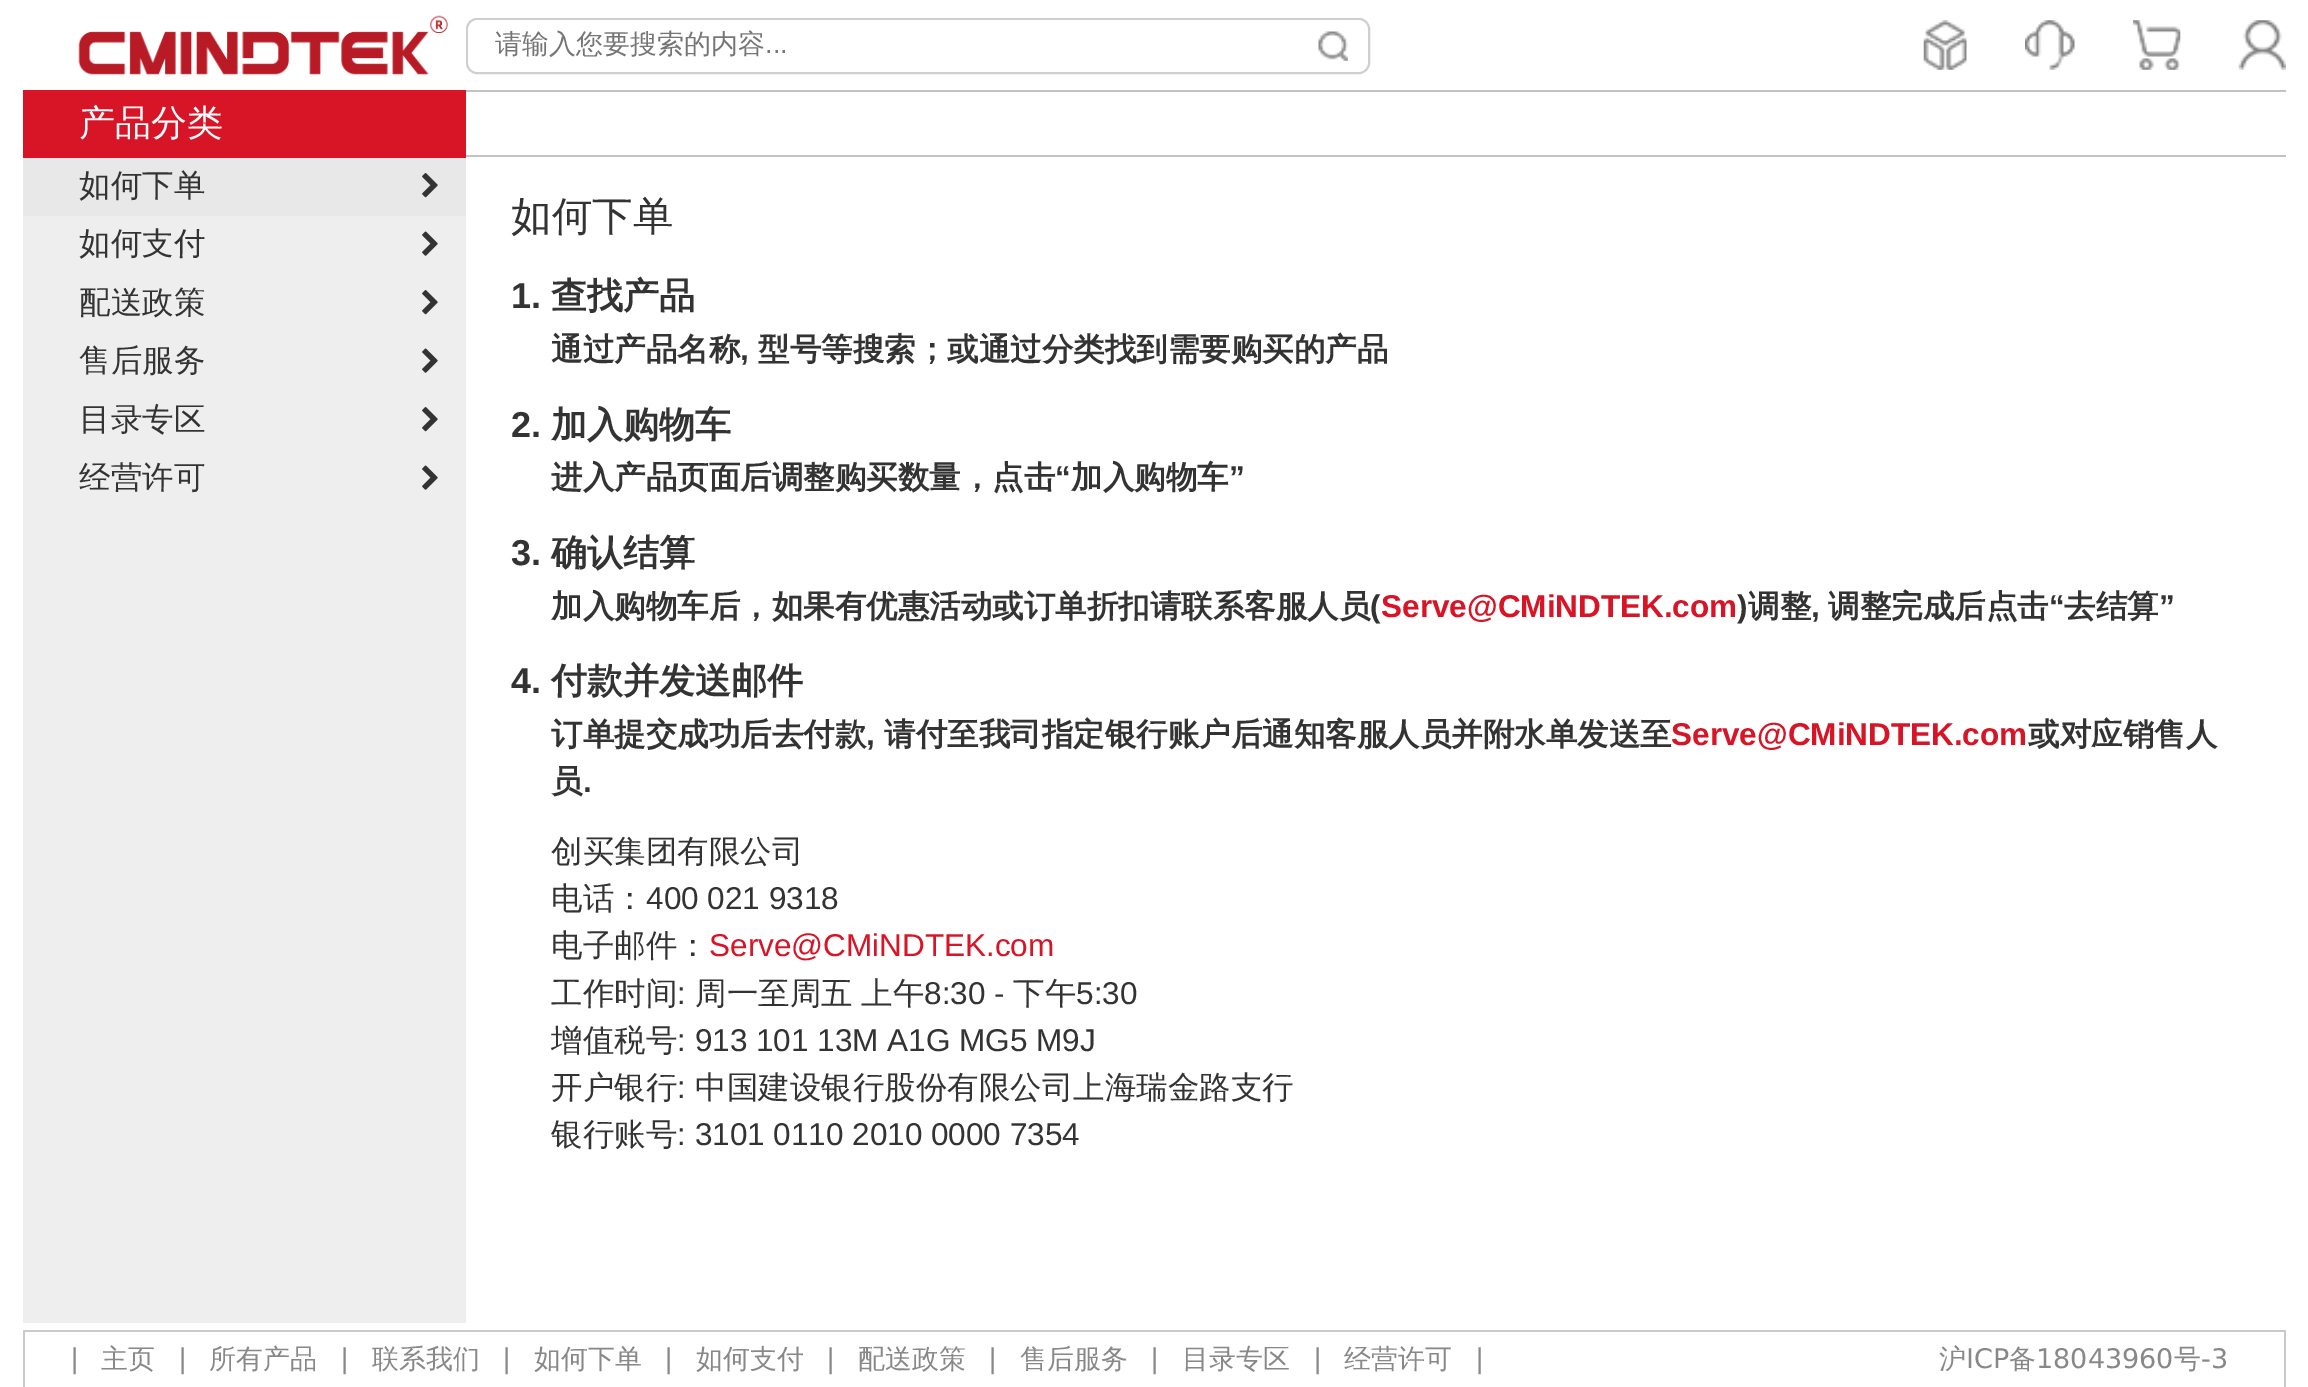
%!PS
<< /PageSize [2308 1387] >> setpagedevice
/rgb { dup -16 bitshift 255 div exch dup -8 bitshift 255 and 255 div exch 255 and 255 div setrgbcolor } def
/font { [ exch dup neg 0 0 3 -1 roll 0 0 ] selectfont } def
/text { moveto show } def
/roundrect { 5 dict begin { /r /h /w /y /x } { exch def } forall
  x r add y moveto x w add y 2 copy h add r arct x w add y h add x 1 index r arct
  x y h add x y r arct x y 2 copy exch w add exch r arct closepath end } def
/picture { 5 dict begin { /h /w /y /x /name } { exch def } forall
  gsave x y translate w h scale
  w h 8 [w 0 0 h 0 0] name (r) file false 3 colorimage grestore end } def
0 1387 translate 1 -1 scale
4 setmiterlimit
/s1 { /WenQuanYiZenHei-Medium 27 font 16#757575 rgb } def
/s2 { /LiberationSans-Regular 27 font 16#757575 rgb } def
/s3 { /WenQuanYiZenHei-Medium 36 font 16#FFFFFF rgb } def
/s4 { /WenQuanYiZenHei-Medium 31.5 font 16#333333 rgb } def
/s5 { /WenQuanYiZenHei-Medium 40.5 font 16#333333 rgb } def
/s6 { /LiberationSans-Bold 36 font 16#333333 rgb } def
/s7 { /WenQuanYiZenHei-Bold 36 font 16#333333 rgb } def
/s8 { /WenQuanYiZenHei-Bold 31.5 font 16#333333 rgb } def
/s9 { /LiberationSans-Bold 31.5 font 16#333333 rgb } def
/s10 { /LiberationSans-Bold 31.5 font 16#D81527 rgb } def
/s11 { /LiberationSans-Regular 31.5 font 16#333333 rgb } def
/s12 { /LiberationSans-Regular 31.5 font 16#D81527 rgb } def
/s13 { /DejaVuSans-Regular 27 font 16#888888 rgb } def
/s14 { /WenQuanYiZenHei-Medium 27 font 16#888888 rgb } def
16#FFFFFF rgb
0 0 2308 1387 rectfill
(pic1.raw) 78 15 370 60 picture
16#CFCFCF rgb
2 setlinewidth
467 19 902 54 10 roundrect stroke
16#FFFFFF rgb
479 20 moveto 1298 20 lineto 1298 72 lineto 479 72 lineto 473 72 468 67 468 61 curveto 468 31 lineto 468 25 473 20 479 20 curveto closepath fill
s1
(请输入您要搜索的内容) 495 53 text
s2
(...) 765 53 text
16#FFFFFF rgb
1298 20 moveto 1357 20 lineto 1363 20 1368 25 1368 31 curveto 1368 61 lineto 1368 67 1363 72 1357 72 curveto 1298 72 lineto closepath fill
(pic2.raw) 1318 31 30 30 picture
(pic3.raw) 1923 20 44 50 picture
(pic4.raw) 2025 20 50 50 picture
(pic5.raw) 2133 20 48 50 picture
(pic6.raw) 2238 20 48 50 picture
16#D81527 rgb
23 90 443 68 rectfill
s3
(产品分类) 79 135 text
16#C3C3C3 rgb
466 90 1820 2 rectfill
466 155 1820 2 rectfill
16#EEEEEE rgb
23 216 443 1107 rectfill
16#E8E8E8 rgb
23 158 443 58 rectfill
s4
(如何下单) 79 196 text
(pic7.raw) 422 173 16 25 picture
(如何支付) 79 254 text
(pic8.raw) 422 231 16 25 picture
(配送政策) 79 313 text
(pic9.raw) 422 290 16 25 picture
(售后服务) 79 371 text
(pic8.raw) 422 348 16 25 picture
(目录专区) 79 430 text
(pic9.raw) 422 407 16 25 picture
(经营许可) 79 488 text
(pic8.raw) 422 465 16 25 picture
s5
(如何下单) 511 230 text
s6
(1.) 511 308 text
s7
(查找产品) 551 308 text
s8
(通过产品名称) 551 360 text
s9
(,) 740 360 text
s8
(型号等搜索；或通过分类找到需要购买的产品) 758 360 text
s6
(2.) 511 437 text
s7
(加入购物车) 551 437 text
s8
(进入产品页面后调整购买数量，点击) 551 488 text
s9
(“) 1055 488 text
s8
(加入购物车) 1071 488 text
s9
(”) 1229 488 text
s6
(3.) 511 565 text
s7
(确认结算) 551 565 text
s8
(加入购物车后，如果有优惠活动或订单折扣请联系客服人员) 551 617 text
s9
(\() 1370 617 text
s10
(Serve@CMiNDTEK.com) 1381 617 text
s9
(\)) 1737 617 text
s8
(调整) 1748 617 text
(调整完成后点击) 1828 617 text
s9
(“) 2049 617 text
s8
(去结算) 2064 617 text
s9
(”) 2159 617 text
(,) 1811 617 text
s6
(4.) 511 693 text
s7
(付款并发送邮件) 551 693 text
s8
(订单提交成功后去付款) 551 745 text
s9
(,) 866 745 text
s8
(请付至我司指定银行账户后通知客服人员并附水单发送至) 884 745 text
s10
(Serve@CMiNDTEK.com) 1671 745 text
s8
(或对应销售人) 2028 745 text
(员) 551 792 text
s9
(.) 583 792 text
s4
(创买集团有限公司) 551 862 text
(电话：) 551 909 text
s11
(400 021 9318) 646 909 text
s4
(电子邮件：) 551 956 text
s12
(Serve@CMiNDTEK.com) 709 956 text
s4
(工作时间) 551 1004 text
s11
(:) 677 1004 text
s4
(周一至周五) 695 1004 text
(上午) 861 1004 text
s11
(8:30 -) 924 1004 text
s4
(下午) 1013 1004 text
s11
(5:30) 1076 1004 text
s4
(增值税号) 551 1051 text
s11
(: 913 101 13M A1G MG5 M9J) 677 1051 text
s4
(开户银行) 551 1098 text
s11
(:) 677 1098 text
s4
(中国建设银行股份有限公司上海瑞金路支行) 695 1098 text
(银行账号) 551 1145 text
s11
(: 3101 0110 2010 0000 7354) 677 1145 text
16#CACACA rgb
23 1330 2263 2 rectfill
2284 1330 2 57 rectfill
23 1330 2 57 rectfill
s13
(|) 70 1368 text
s14
(主页) 101 1368 text
s13
(|) 178 1368 text
s14
(所有产品) 209 1368 text
s13
(|) 340 1368 text
s14
(联系我们) 372 1368 text
s13
(|) 502 1368 text
s14
(如何下单) 534 1368 text
s13
(|) 664 1368 text
s14
(如何支付) 696 1368 text
s13
(|) 826 1368 text
s14
(配送政策) 858 1368 text
s13
(|) 988 1368 text
s14
(售后服务) 1020 1368 text
s13
(|) 1150 1368 text
s14
(目录专区) 1182 1368 text
s13
(|) 1313 1368 text
s14
(经营许可) 1344 1368 text
s13
(|) 1475 1368 text
s14
(沪) 1939 1368 text
s13
(ICP) 1966 1368 text
s14
(备) 2009 1368 text
s13
(18043960) 2036 1368 text
s14
(号) 2174 1368 text
s13
(-3) 2201 1368 text
showpage
